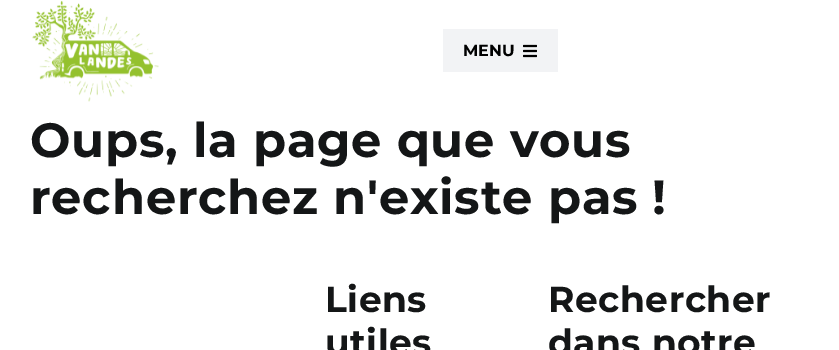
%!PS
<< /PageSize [839 350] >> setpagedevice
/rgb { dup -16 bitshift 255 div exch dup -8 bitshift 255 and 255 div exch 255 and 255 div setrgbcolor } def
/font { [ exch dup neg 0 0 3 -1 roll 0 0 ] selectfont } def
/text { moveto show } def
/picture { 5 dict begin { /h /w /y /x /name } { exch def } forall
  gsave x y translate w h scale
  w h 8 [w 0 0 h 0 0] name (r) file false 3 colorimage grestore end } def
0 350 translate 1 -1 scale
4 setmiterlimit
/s1 { /Montserrat-Bold 16 font 16#000000 rgb } def
16#FFFFFF rgb
0 0 839 350 rectfill
(pic1.raw) 32 0 127 102 picture
16#F2F3F5 rgb
443 29 115 43 rectfill
s1
(MENU) 463 56 text
(pic2.raw) 523 44 14 14 picture
/Montserrat-Bold 48 font
16#141617 rgb
30 157 moveto 0.75 0 (Oups, la page que vous) ashow
30 214 moveto 0.75 0 (recherchez n'existe pas !) ashow
/Montserrat-Bold 36 font
325 312 moveto 0.5 0 (Liens) ashow
325 355 moveto 0.5 0 (utiles) ashow
548 312 moveto 0.5 0 (Rechercher) ashow
548 355 moveto 0.5 0 (dans notre) ashow
showpage
